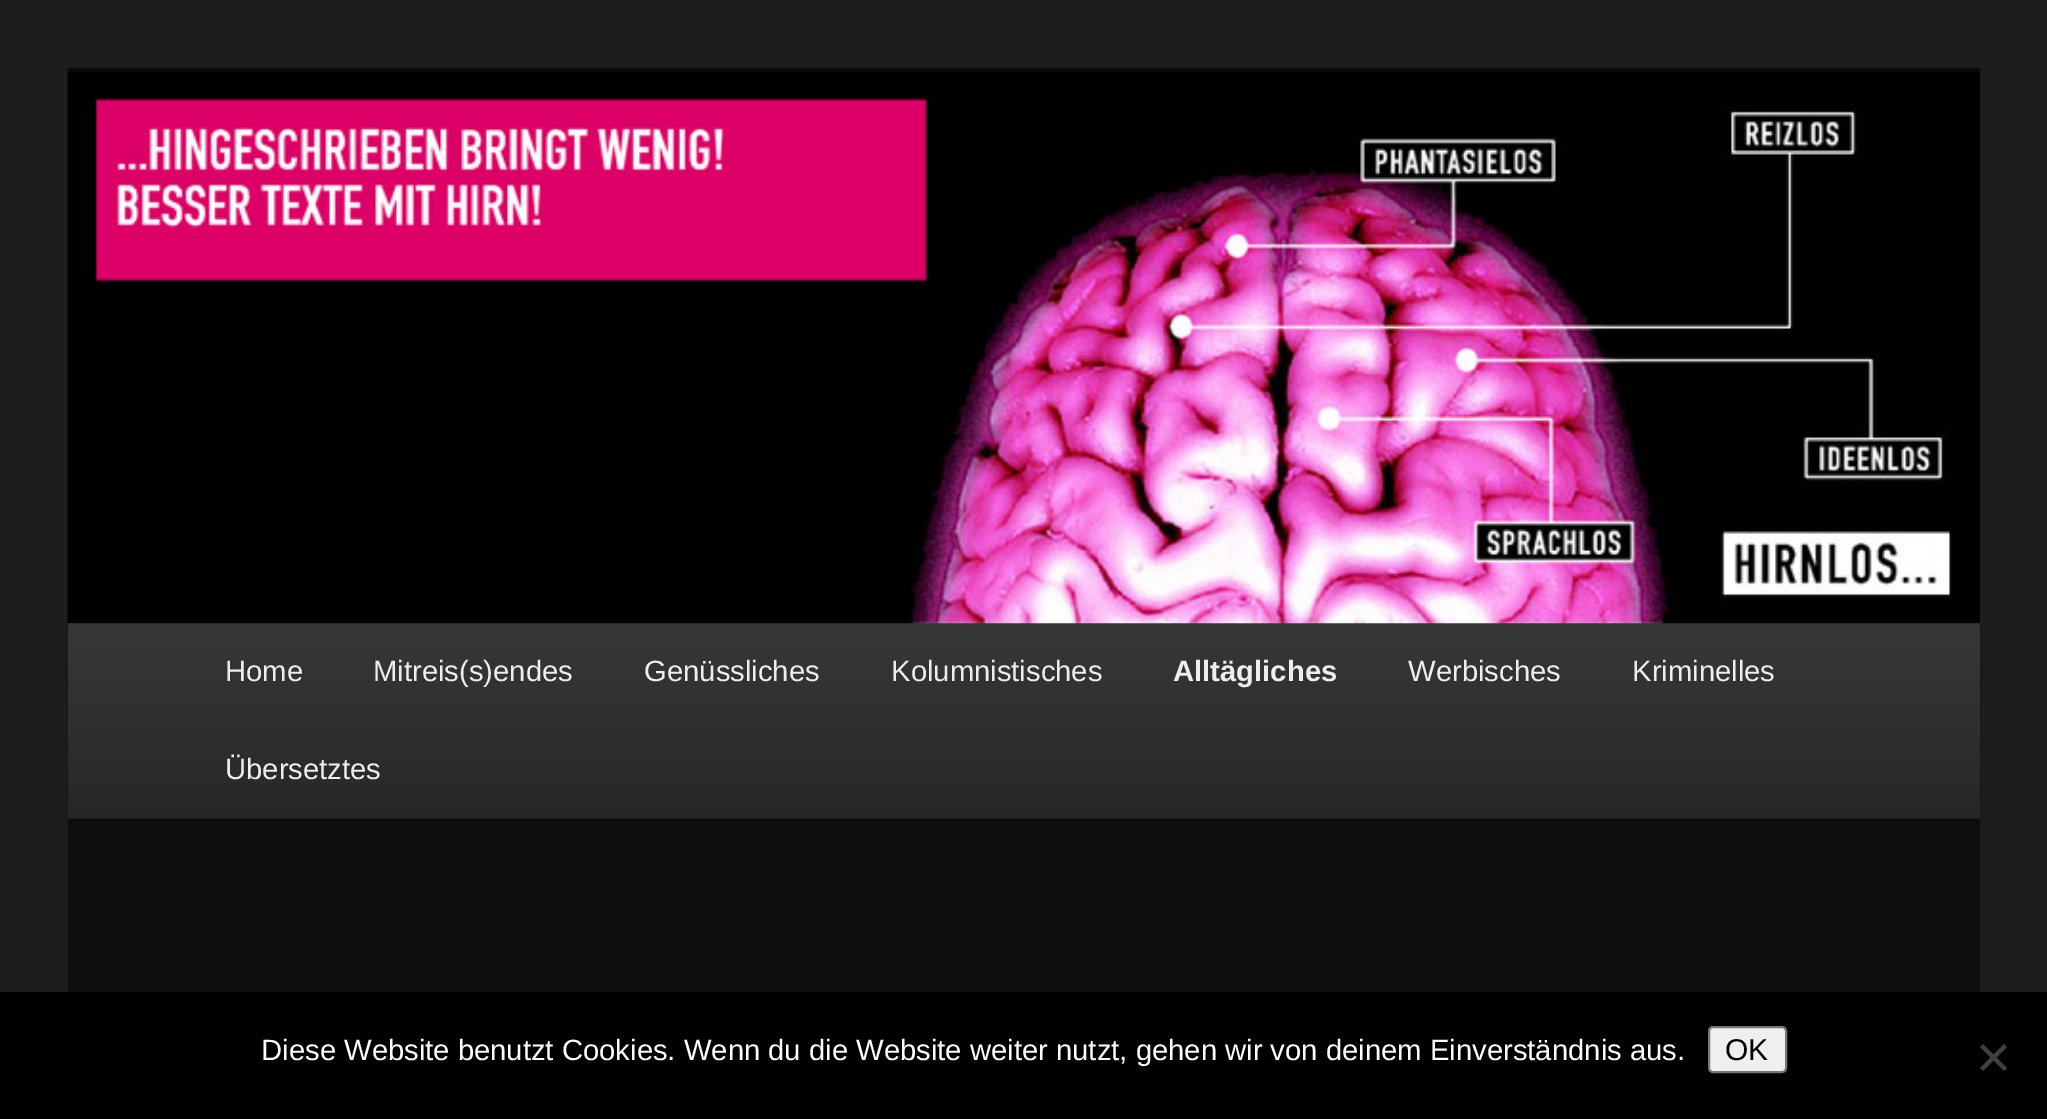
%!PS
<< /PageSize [2047 1119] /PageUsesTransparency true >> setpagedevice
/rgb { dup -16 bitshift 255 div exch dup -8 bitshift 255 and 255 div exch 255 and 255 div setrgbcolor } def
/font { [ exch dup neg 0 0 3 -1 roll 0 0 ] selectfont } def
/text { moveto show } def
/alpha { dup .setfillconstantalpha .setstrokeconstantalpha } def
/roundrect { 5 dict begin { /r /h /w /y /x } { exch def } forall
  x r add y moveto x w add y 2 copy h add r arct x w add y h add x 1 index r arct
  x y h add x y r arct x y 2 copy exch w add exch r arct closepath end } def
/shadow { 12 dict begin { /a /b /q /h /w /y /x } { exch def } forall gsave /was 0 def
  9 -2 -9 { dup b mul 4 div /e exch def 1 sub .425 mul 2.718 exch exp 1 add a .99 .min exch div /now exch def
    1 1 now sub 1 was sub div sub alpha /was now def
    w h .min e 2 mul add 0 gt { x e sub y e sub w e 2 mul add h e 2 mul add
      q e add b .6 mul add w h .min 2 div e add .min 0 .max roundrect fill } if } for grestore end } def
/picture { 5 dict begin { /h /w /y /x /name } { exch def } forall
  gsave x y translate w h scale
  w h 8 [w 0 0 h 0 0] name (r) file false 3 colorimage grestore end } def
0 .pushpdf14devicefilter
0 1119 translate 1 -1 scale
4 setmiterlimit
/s1 { /LiberationSans-Regular 29.25 font 16#EEEEEE rgb } def
/s2 { /LiberationSans-Bold 29.25 font 16#EEEEEE rgb } def
/s3 { /LiberationSans-Regular 29.25 font 16#FFFFFF rgb } def
/s4 { /LiberationSans-Regular 30 font 16#000000 rgb } def
16#1D1D1D rgb
0 0 2047 1119 rectfill
16#0F0F0F rgb
68 819 1912 173 rectfill
16#0A0A0A rgb
68 68 1912 4 rectfill
16#000000 rgb
68 626 1912 195 0 2 0.4 shadow
gsave 68 623 moveto 1980 623 lineto 1980 817 lineto 68 817 lineto closepath clip newpath
<< /ShadingType 2 /ColorSpace /DeviceRGB /Coords [1024 623 1024 817] /Extend [true true] /Function << /FunctionType 2 /Domain [0 1] /C0 [0.22 0.22 0.22] /C1 [0.153 0.153 0.153] /N 1 >> >> shfill grestore
(pic1.raw) 67 72 1913 552 picture
16#222222 rgb
68 817 1912 2 rectfill
s1
(Home) 225 681 text
(Mitreis\(s\)endes) 373 681 text
(Genüssliches) 644 681 text
(Kolumnistisches) 891 681 text
s2
(Alltägliches) 1173 681 text
s1
(Werbisches) 1408 681 text
(Kriminelles) 1632 681 text
(Übersetztes) 225 779 text
16#000000 rgb
0 992 2047 127 rectfill
s3
(Diese Website benutzt Cookies. Wenn du die Website weiter nutzt, gehen wir von deinem Einverständnis aus.) 261 1060 text
16#EFEFEF rgb
1709 1027 77 45 4 roundrect gsave fill grestore
16#767676 rgb
2 setlinewidth
stroke
s4
(OK) 1725 1060 text
16#404040 rgb
2004 1044 moveto 2007 1047 lineto 1983 1071 lineto 1980 1068 lineto closepath fill
1980 1047 moveto 1983 1044 lineto 2007 1068 lineto 2004 1071 lineto closepath fill
.poppdf14devicefilter showpage
